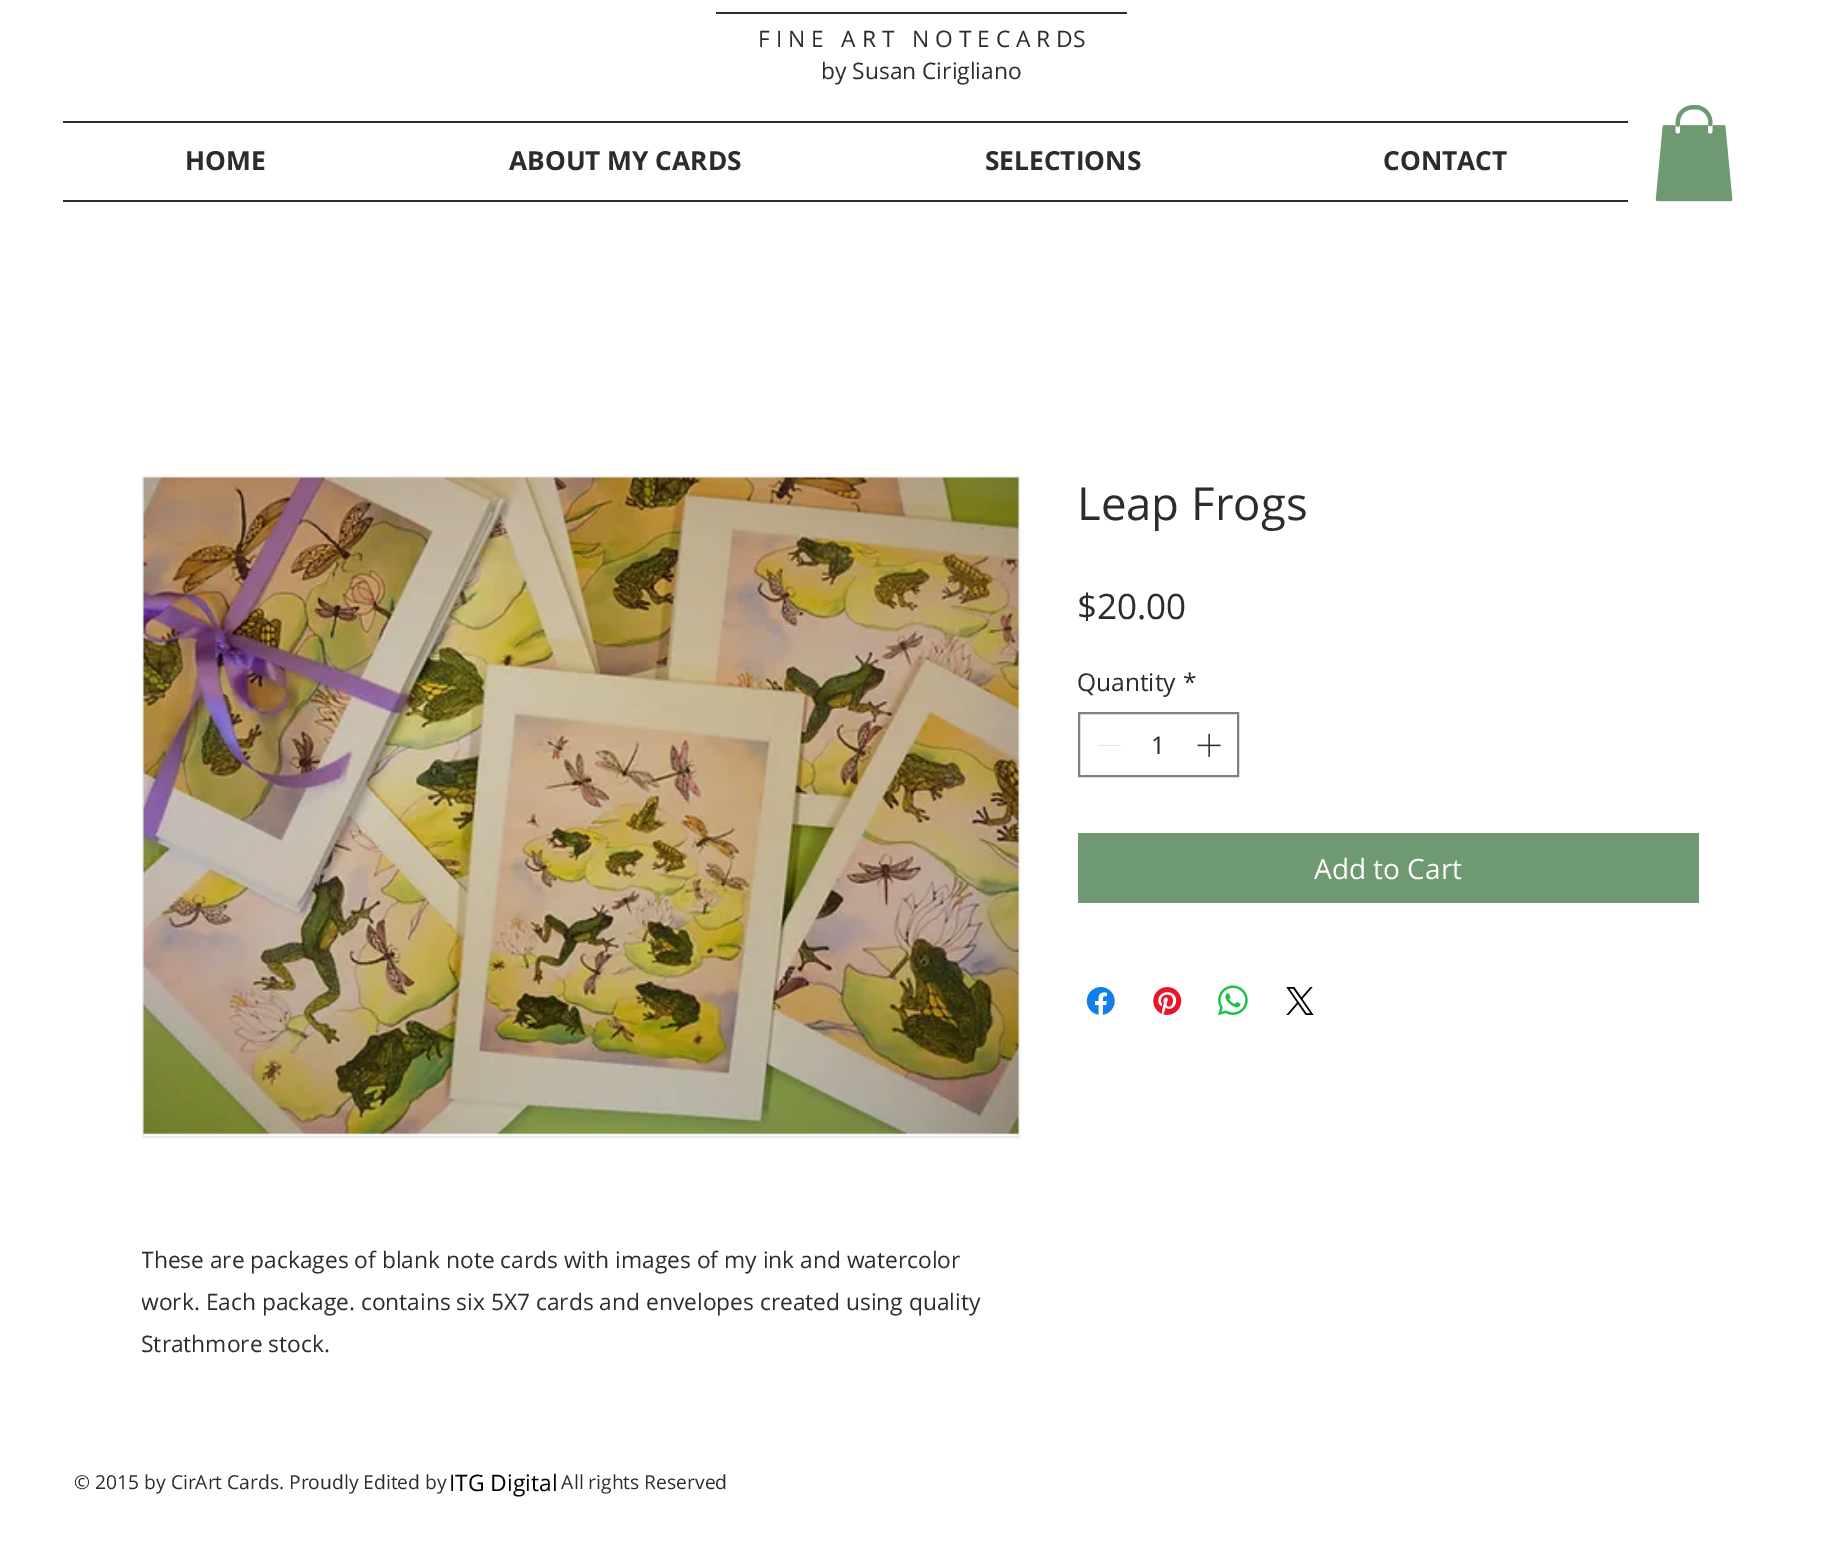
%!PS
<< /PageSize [1838 1560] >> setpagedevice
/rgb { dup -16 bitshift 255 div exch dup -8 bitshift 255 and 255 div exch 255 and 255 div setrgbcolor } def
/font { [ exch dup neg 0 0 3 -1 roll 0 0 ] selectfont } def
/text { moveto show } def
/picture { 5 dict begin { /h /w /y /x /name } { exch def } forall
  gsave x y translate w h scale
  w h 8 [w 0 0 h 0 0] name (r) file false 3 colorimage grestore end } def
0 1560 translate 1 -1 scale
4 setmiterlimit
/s1 { /OpenSans-Regular 22.75 font 16#2C2C2B rgb } def
/s2 { /OpenSans-Bold 26.25 font 16#2C2C2B rgb } def
/s3 { /OpenSans-Regular 45.5 font 16#2C2C2B rgb } def
/s4 { /OpenSans-Regular 35 font 16#2C2C2B rgb } def
/s5 { /OpenSans-Regular 24.5 font 16#2C2C2B rgb } def
/s6 { /OpenSans-Regular 28 font 16#FFFFFF rgb } def
/s7 { /OpenSans-Regular 19.25 font 16#2C2C2B rgb } def
/s8 { /OpenSans-Regular 22.75 font 16#000000 rgb } def
16#FFFFFF rgb
0 0 1838 1560 rectfill
16#2C2C2B rgb
716 12 411 2 rectfill
s1
(F I N E   A R T   N O T E C A R DS) 758 47 text
(by Susan Cirigliano) 821 79 text
63 121 1565 2 rectfill
63 200 1565 2 rectfill
s2
(HOME) 185 170 text
(ABOUT MY CARDS) 509 170 text
(SELECTIONS) 985 170 text
(CONTACT) 1383 170 text
(pic1.raw) 1655 105 78 97 picture
s3
(Leap Frogs) 1077 520 text
s4
($20.00) 1077 619 text
s5
(Quantity) 1077 691 text
(*) 1183 691 text
16#808080 rgb
2 setlinewidth
1079 713 159 63 rectstroke
16#E3E3E3 rgb
1098 745 23 1 rectfill
s5
(1) 1151 754 text
(pic2.raw) 1197 733 24 24 picture
16#6F9971 rgb
1078 833 621 70 rectfill
s6
(Add to Cart) 1314 879 text
(pic3.raw) 1086 987 29 28 picture
(pic4.raw) 1153 987 29 28 picture
(pic5.raw) 1218 985 30 31 picture
(pic6.raw) 1286 987 28 28 picture
16#EDEDEC rgb
143 477 876 660 rectstroke
(pic7.raw) 143 477 876 658 picture
gsave
142 1239 875 126 rectclip
s1
(These are packages of blank note cards with images of my ink and watercolor) 141 1268 text
(work. Each package. contains six 5X7 cards and envelopes created using quality) 141 1310 text
grestore
s1
(Strathmore stock.) 141 1352 text
s7
(© 2015 by CirArt Cards. Proudly Edited by                       All rights Reserved) 74 1489 text
s8
(ITG Digital) 449 1491 text
showpage
